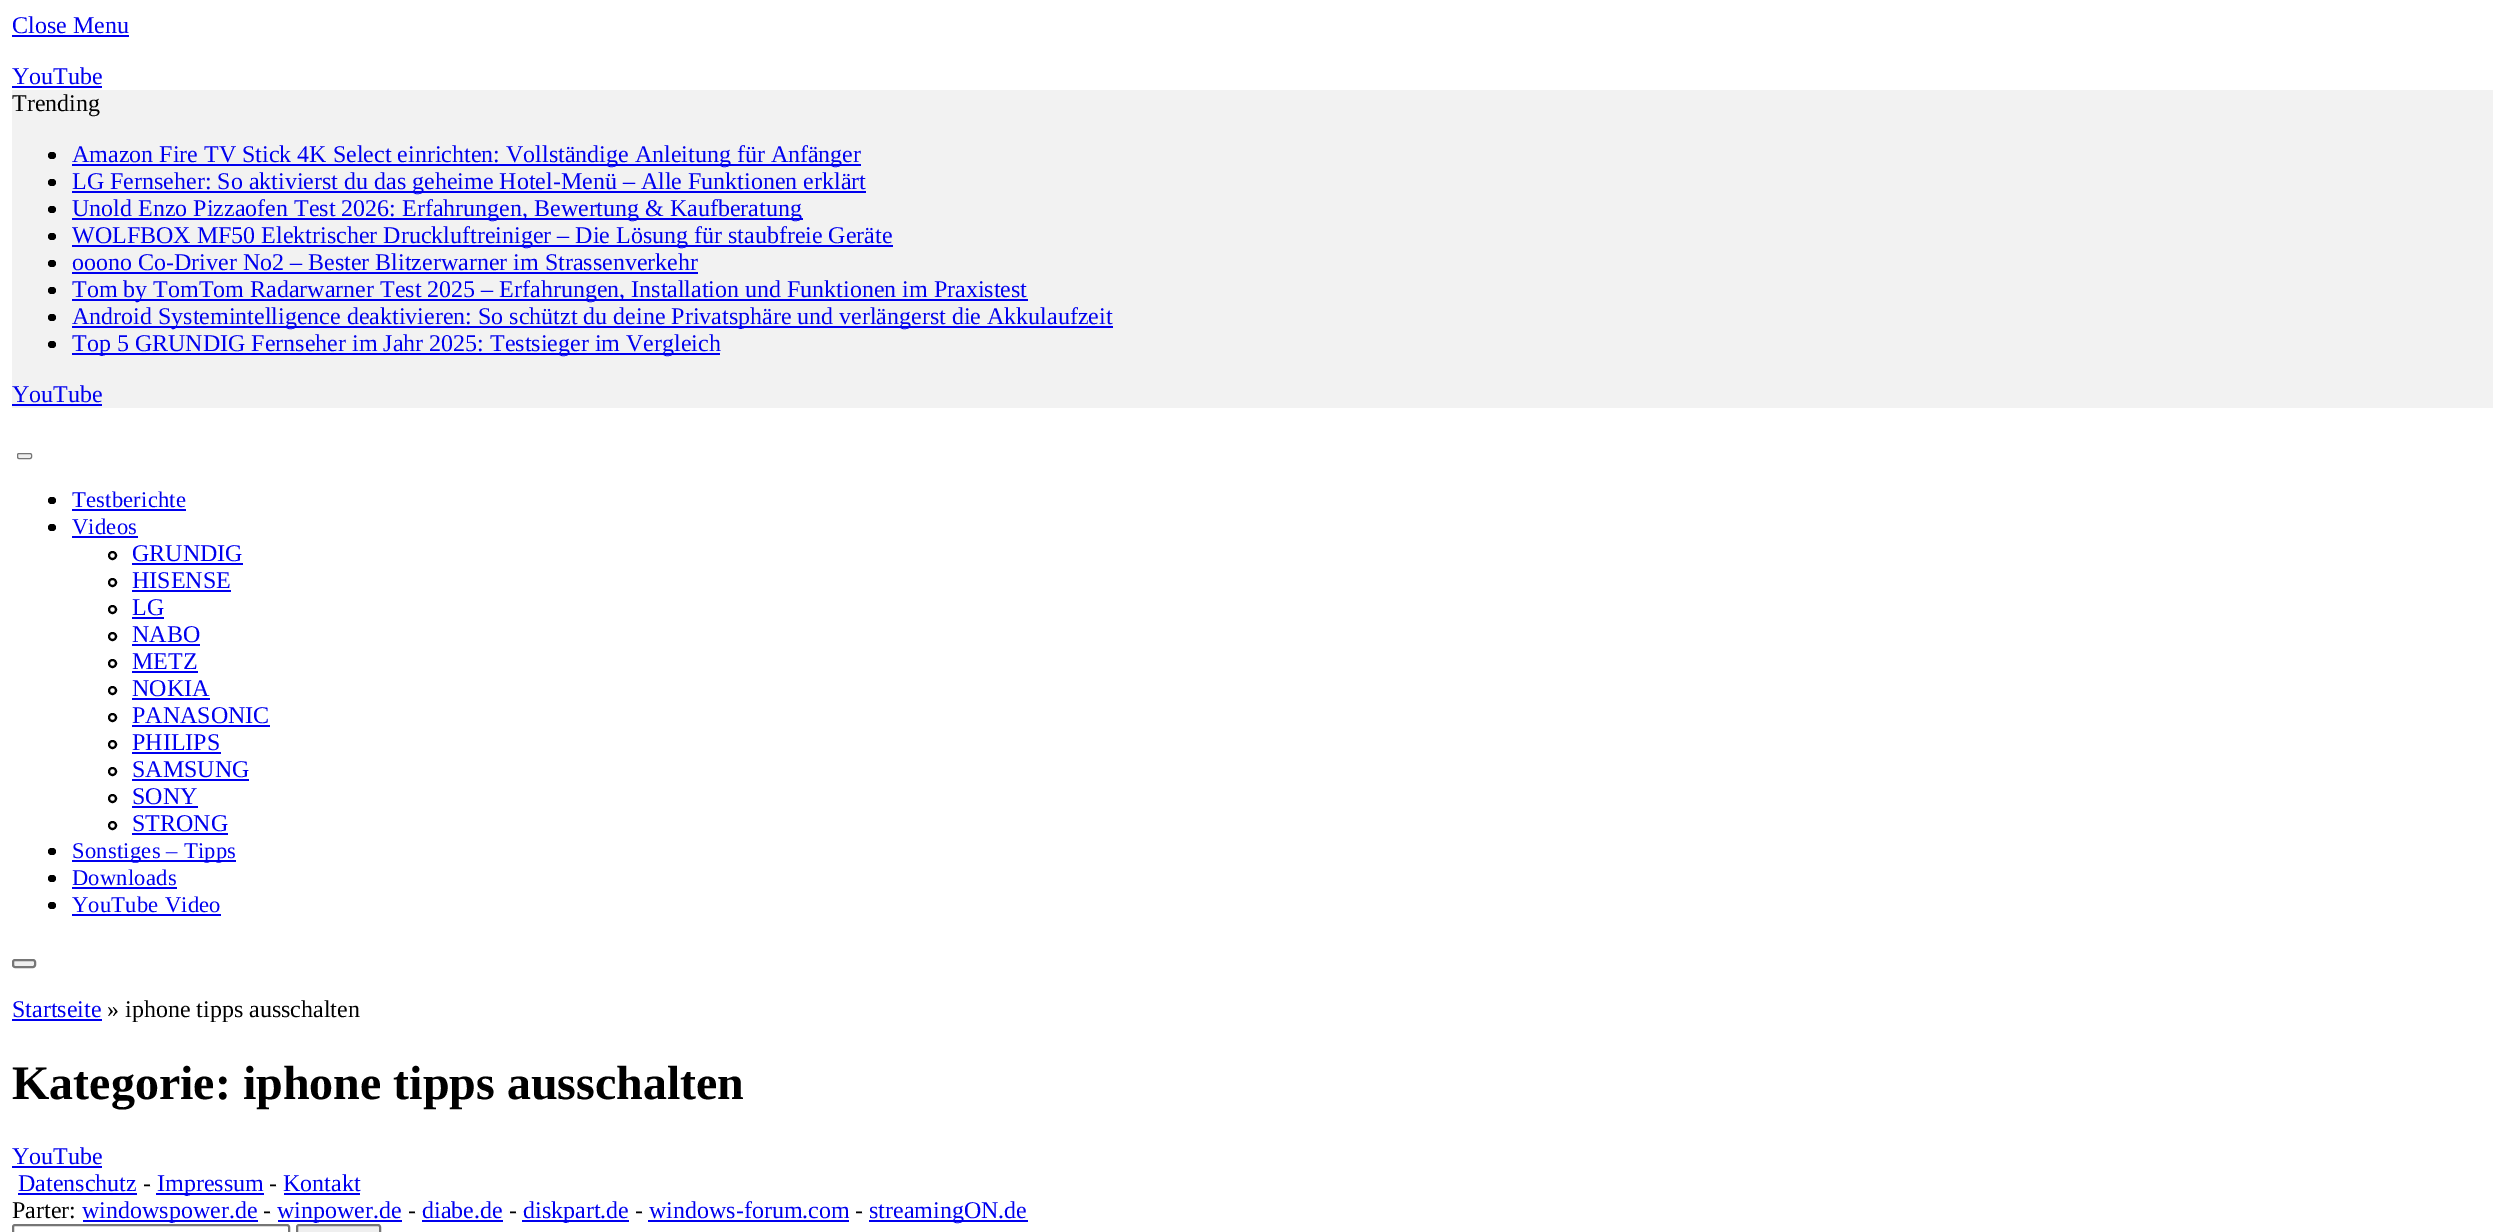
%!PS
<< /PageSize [2505 1232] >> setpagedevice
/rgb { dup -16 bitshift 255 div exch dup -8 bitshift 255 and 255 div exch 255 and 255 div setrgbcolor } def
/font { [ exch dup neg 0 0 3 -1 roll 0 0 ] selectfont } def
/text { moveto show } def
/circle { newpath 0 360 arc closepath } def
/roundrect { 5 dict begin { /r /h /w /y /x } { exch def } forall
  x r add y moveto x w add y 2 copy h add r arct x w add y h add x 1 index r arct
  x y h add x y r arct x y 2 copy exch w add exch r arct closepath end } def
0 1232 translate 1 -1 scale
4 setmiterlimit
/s1 { /LiberationSerif-Regular 24 font 16#0000EE rgb } def
/s2 { /LiberationSerif-Regular 24 font 16#000000 rgb } def
/s3 { /LiberationSerif-Bold 48 font 16#000000 rgb } def
16#FFFFFF rgb
0 0 2505 1232 rectfill
s1
(Close Menu) 12 33 text
12 35 117 2 rectfill
(YouTube) 12 84 text
12 86 90 2 rectfill
16#F2F2F2 rgb
12 90 2481 318 rectfill
s2
(Trending) 12 111 text
48 152 8 7 3.5 roundrect fill
16#0000EE rgb
72 164 789 2 rectfill
(Amazon Fire TV Stick 4K Select einrichten: Vollständige Anleitung für Anfänger) 72 162 text
16#000000 rgb
48 179 8 7 3.5 roundrect fill
16#0000EE rgb
72 191 794 2 rectfill
(LG Fernseher: So aktivierst du das geheime Hotel-Menü – Alle Funktionen erklärt) 72 189 text
16#000000 rgb
48 206 8 7 3.5 roundrect fill
16#0000EE rgb
72 218 731 2 rectfill
(Unold Enzo Pizzaofen Test 2026: Erfahrungen, Bewertung & Kaufberatung) 72 216 text
16#000000 rgb
48 233 8 7 3.5 roundrect fill
16#0000EE rgb
72 245 821 2 rectfill
(WOLFBOX MF50 Elektrischer Druckluftreiniger – Die Lösung für staubfreie Geräte) 72 243 text
16#000000 rgb
48 260 8 7 3.5 roundrect fill
s1
(ooono Co-Driver No2 – Bester Blitzerwarner im Strassenverkehr) 72 270 text
72 272 626 2 rectfill
16#000000 rgb
48 287 8 7 3.5 roundrect fill
16#0000EE rgb
72 299 956 2 rectfill
(Tom by TomTom Radarwarner Test 2025 – Erfahrungen, Installation und Funktionen im Praxistest) 72 297 text
16#000000 rgb
48 314 8 7 3.5 roundrect fill
16#0000EE rgb
72 326 1041 2 rectfill
(Android Systemintelligence deaktivieren: So schützt du deine Privatsphäre und verlängerst die Akkulaufzeit) 72 324 text
16#000000 rgb
48 341 8 7 3.5 roundrect fill
16#0000EE rgb
72 353 648 2 rectfill
(Top 5 GRUNDIG Fernseher im Jahr 2025: Testsieger im Vergleich) 72 351 text
(YouTube) 12 402 text
12 404 90 2 rectfill
16#EFEFEF rgb
17.5 453.5 14 5 1.5 roundrect gsave fill grestore
16#767676 rgb
stroke
16#000000 rgb
48 497 8 7 3.5 roundrect fill
/LiberationSerif-Regular 22.5 font
16#0000EE rgb
72 507 moveto 0.25 0 (Testberichte) ashow
72 509 114 2 rectfill
16#000000 rgb
48 524 8 7 3.5 roundrect fill
16#0000EE rgb
72 534 moveto 0.25 0 (Videos) ashow
72 536 66 2 rectfill
16#000000 rgb
2 setlinewidth
112.5 555.5 3.5 circle stroke
s1
(GRUNDIG) 132 561 text
132 563 111 2 rectfill
16#000000 rgb
112.5 582.5 3.5 circle stroke
s1
(HISENSE) 132 588 text
132 590 99 2 rectfill
16#000000 rgb
112.5 609.5 3.5 circle stroke
s1
(LG) 132 615 text
132 617 32 2 rectfill
16#000000 rgb
112.5 636.5 3.5 circle stroke
s1
(NABO) 132 642 text
132 644 68 2 rectfill
16#000000 rgb
112.5 663.5 3.5 circle stroke
s1
(METZ) 132 669 text
132 671 66 2 rectfill
16#000000 rgb
112.5 690.5 3.5 circle stroke
s1
(NOKIA) 132 696 text
132 698 78 2 rectfill
16#000000 rgb
112.5 717.5 3.5 circle stroke
s1
(PANASONIC) 132 723 text
132 725 138 2 rectfill
16#000000 rgb
112.5 744.5 3.5 circle stroke
s1
(PHILIPS) 132 750 text
132 752 89 2 rectfill
16#000000 rgb
112.5 771.5 3.5 circle stroke
s1
(SAMSUNG) 132 777 text
132 779 117 2 rectfill
16#000000 rgb
112.5 798.5 3.5 circle stroke
s1
(SONY) 132 804 text
132 806 66 2 rectfill
16#000000 rgb
112.5 825.5 3.5 circle stroke
s1
(STRONG) 132 831 text
132 833 96 2 rectfill
16#000000 rgb
48 848 8 7 3.5 roundrect fill
16#0000EE rgb
72 860 164 2 rectfill
/LiberationSerif-Regular 22.5 font
72 858 moveto 0.25 0 (Sonstiges – Tipps) ashow
16#000000 rgb
48 875 8 7 3.5 roundrect fill
16#0000EE rgb
72 885 moveto 0.25 0 (Downloads) ashow
72 887 105 2 rectfill
16#000000 rgb
48 902 8 7 3.5 roundrect fill
16#0000EE rgb
72 912 moveto 0.25 0 (YouTube Video) ashow
72 914 149 2 rectfill
16#EFEFEF rgb
13 960 22 7 2 roundrect gsave fill grestore
16#767676 rgb
stroke
s1
(Startseite) 12 1017 text
12 1019 90 2 rectfill
s2
(» iphone tipps ausschalten) 107 1017 text
s3
(Kategorie: iphone tipps ausschalten) 12 1099 text
s1
(YouTube) 12 1164 text
12 1166 90 2 rectfill
(Datenschutz) 18 1191 text
18 1193 119 2 rectfill
s2
(-) 143 1191 text
16#0000EE rgb
156 1193 108 2 rectfill
(Impressum) 157 1191 text
s2
(-) 269 1191 text
s1
(Kontakt) 283 1191 text
284 1193 76 2 rectfill
s2
(Parter:) 12 1218 text
16#0000EE rgb
83 1220 175 2 rectfill
(windowspower.de) 82 1218 text
s2
(-) 263 1218 text
16#0000EE rgb
278 1220 124 2 rectfill
(winpower.de) 277 1218 text
s2
(-) 408 1218 text
s1
(diabe.de) 422 1218 text
422 1220 81 2 rectfill
s2
(-) 509 1218 text
16#0000EE rgb
522 1220 107 2 rectfill
(diskpart.de) 523 1218 text
s2
(-) 635 1218 text
s1
(windows-forum.com) 649 1218 text
648 1220 201 2 rectfill
s2
(-) 855 1218 text
16#0000EE rgb
869 1220 159 2 rectfill
(streamingON.de) 869 1218 text
16#767676 rgb
13 1225 276 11 2 roundrect stroke
16#EFEFEF rgb
297 1225 83 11 2 roundrect gsave fill grestore
16#767676 rgb
stroke
showpage
